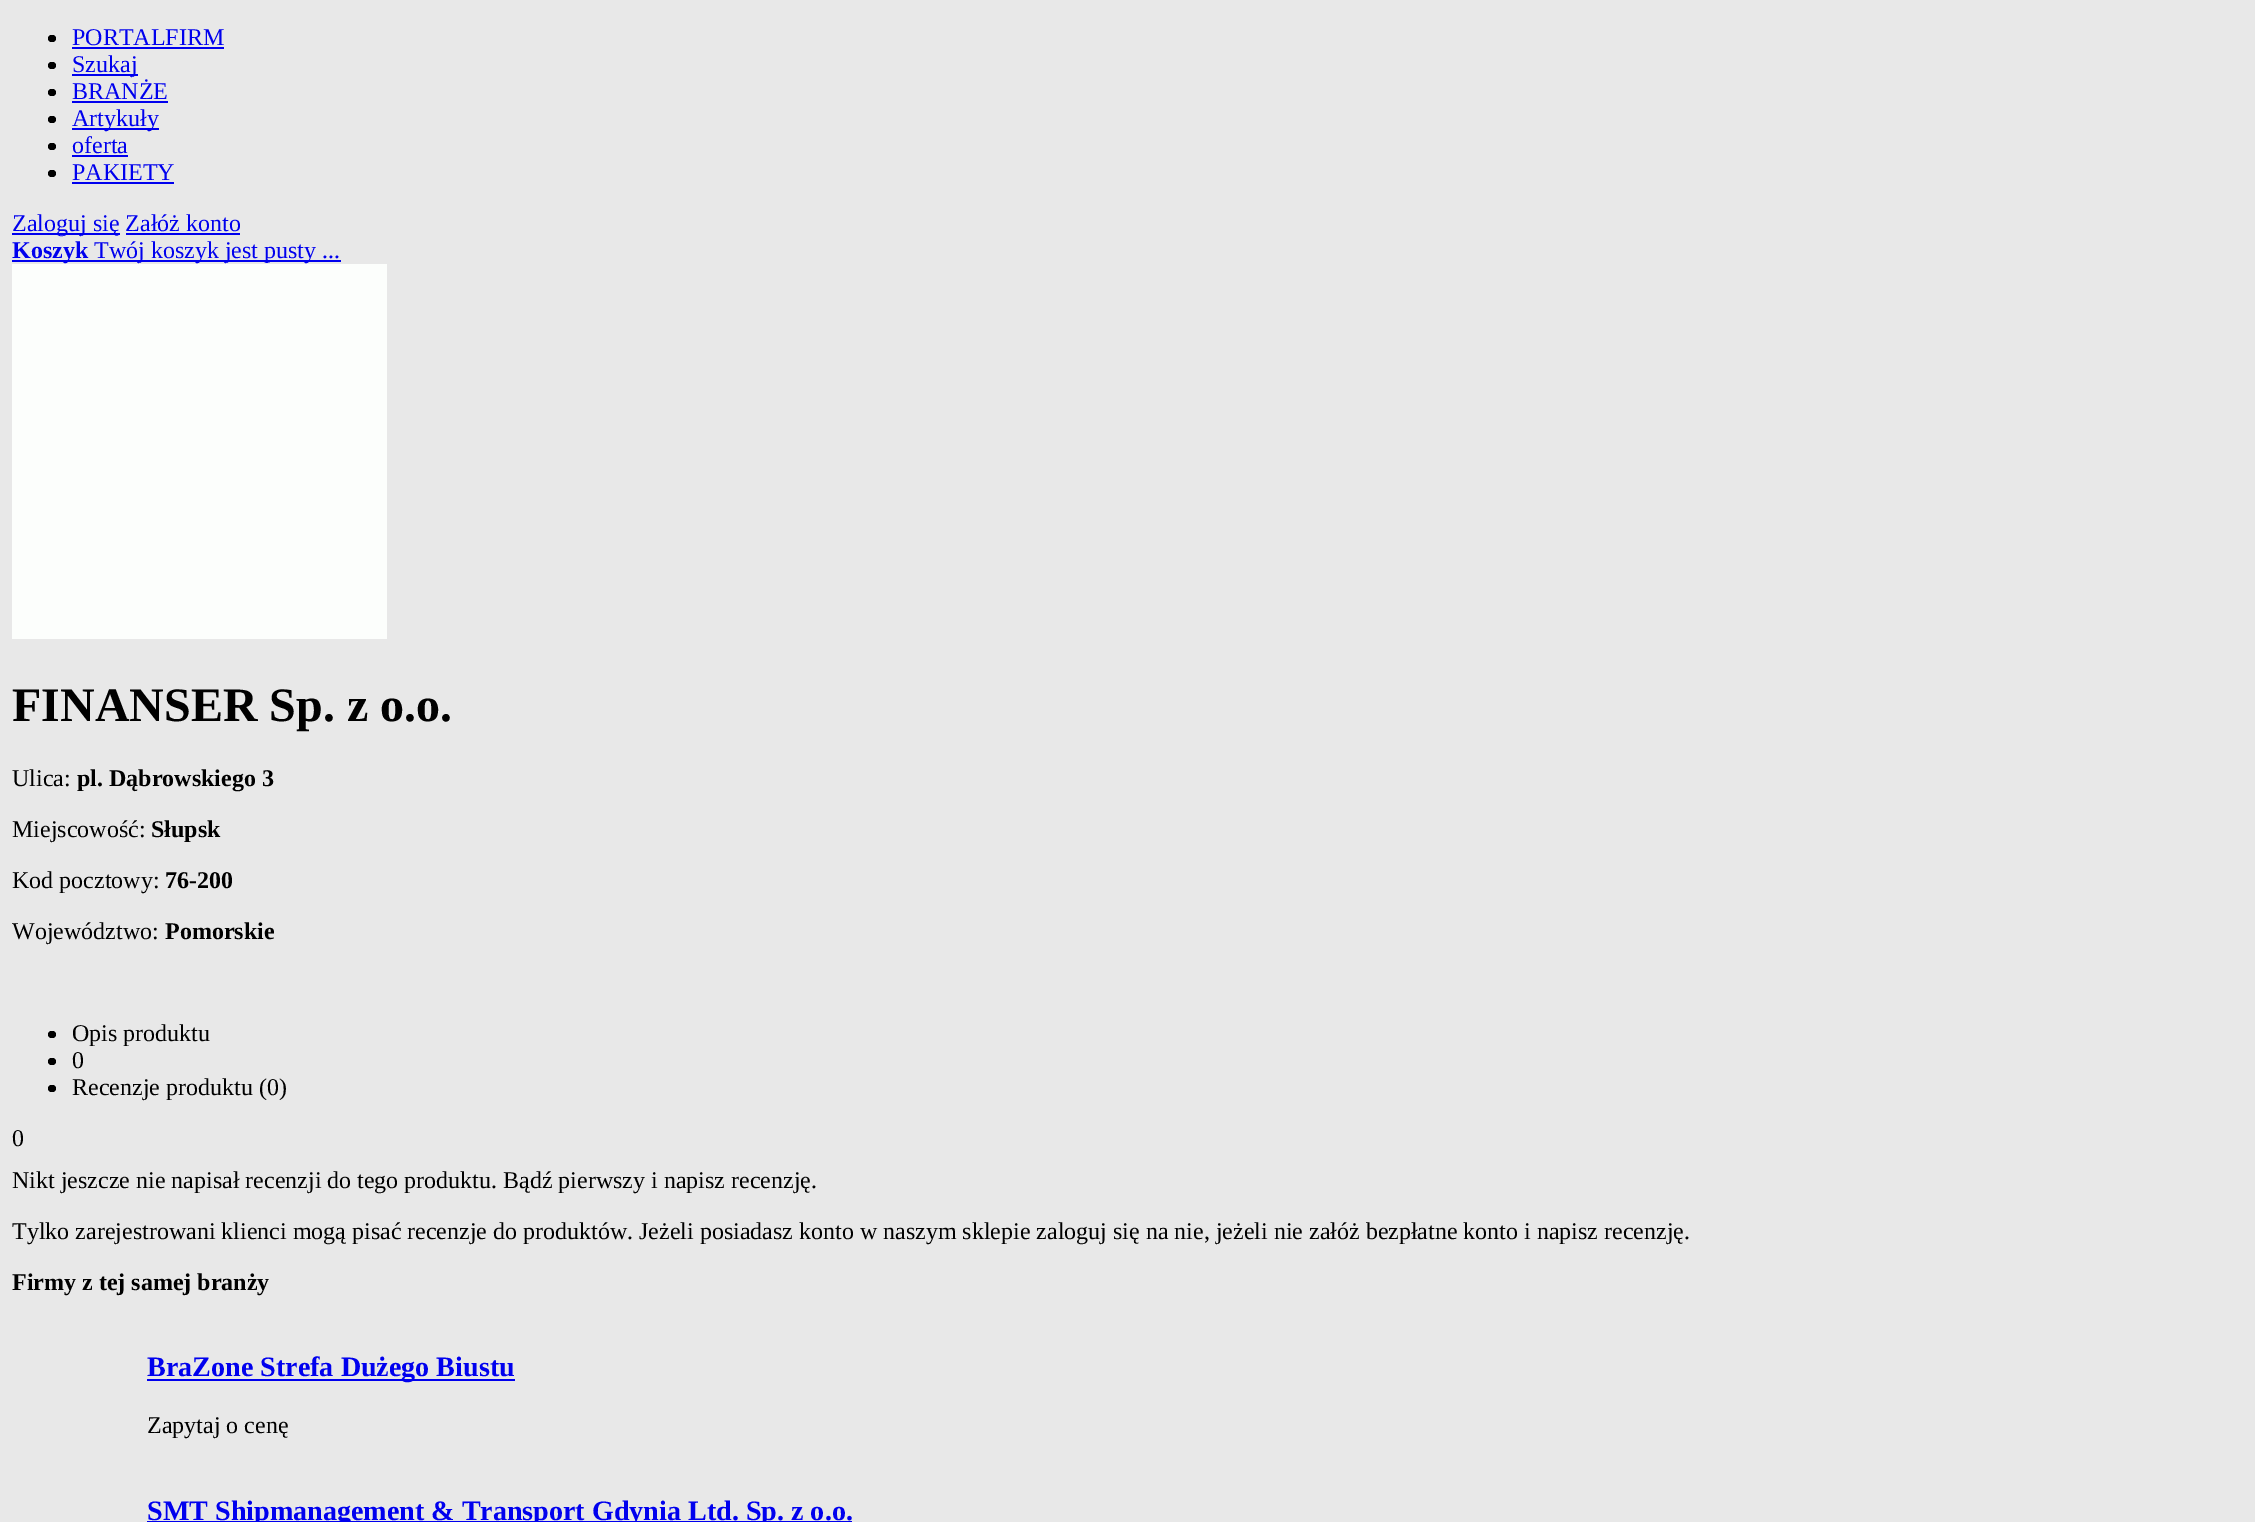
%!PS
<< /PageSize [2255 1522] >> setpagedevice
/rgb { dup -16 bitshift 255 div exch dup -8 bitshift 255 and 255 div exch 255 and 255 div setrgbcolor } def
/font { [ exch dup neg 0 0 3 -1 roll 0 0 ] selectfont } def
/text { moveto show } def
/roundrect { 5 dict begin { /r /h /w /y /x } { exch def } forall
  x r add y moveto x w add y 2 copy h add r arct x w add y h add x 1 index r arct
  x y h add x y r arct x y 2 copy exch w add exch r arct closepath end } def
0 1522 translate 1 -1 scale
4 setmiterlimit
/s1 { /LiberationSerif-Regular 24 font 16#0000EE rgb } def
/s2 { /LiberationSerif-Bold 24 font 16#0000EE rgb } def
/s3 { /LiberationSerif-Bold 48 font 16#000000 rgb } def
/s4 { /LiberationSerif-Regular 24 font 16#000000 rgb } def
/s5 { /LiberationSerif-Bold 24 font 16#000000 rgb } def
/s6 { /LiberationSerif-Bold 28.1 font 16#0000EE rgb } def
16#E8E8E8 rgb
0 0 2255 1522 rectfill
16#000000 rgb
48 35 8 7 3.5 roundrect fill
s1
(PORTALFIRM) 72 45 text
72 47 152 2 rectfill
16#000000 rgb
48 62 8 7 3.5 roundrect fill
16#0000EE rgb
72 74 66 2 rectfill
(Szukaj) 72 72 text
16#000000 rgb
48 89 8 7 3.5 roundrect fill
s1
(BRANŻE) 72 99 text
72 101 96 2 rectfill
16#000000 rgb
48 116 8 7 3.5 roundrect fill
16#0000EE rgb
72 128 87 2 rectfill
(Artykuły) 72 126 text
16#000000 rgb
48 143 8 7 3.5 roundrect fill
s1
(oferta) 72 153 text
72 155 56 2 rectfill
16#000000 rgb
48 170 8 7 3.5 roundrect fill
s1
(PAKIETY) 72 180 text
72 182 102 2 rectfill
12 233 108 2 rectfill
(Zaloguj się Załóż konto) 12 231 text
126 233 114 2 rectfill
12 260 329 2 rectfill
s2
(Koszyk) 12 258 text
s1
(Twój koszyk jest pusty ...) 94 258 text
16#FCFEFC rgb
12 264 375 375 rectfill
s3
(FINANSER Sp. z o.o.) 12 721 text
s4
(Ulica:) 12 786 text
s5
(pl. Dąbrowskiego 3) 77 786 text
s4
(Miejscowość:) 12 837 text
s5
(Słupsk) 151 837 text
s4
(Kod pocztowy:) 12 888 text
s5
(76-200) 165 888 text
s4
(Województwo:) 12 939 text
s5
(Pomorskie) 165 939 text
48 1031 8 7 3.5 roundrect fill
s4
(Opis produktu) 72 1041 text
48 1058 8 7 3.5 roundrect fill
(0) 72 1068 text
48 1085 8 7 3.5 roundrect fill
(Recenzje produktu \(0\)) 72 1095 text
(0) 12 1146 text
(Nikt jeszcze nie napisał recenzji do tego produktu. Bądź pierwszy i napisz recenzję.) 12 1188 text
(Tylko zarejestrowani klienci mogą pisać recenzje do produktów. Jeżeli posiadasz konto w naszym sklepie zaloguj się na nie, jeżeli nie załóż bezpłatne konto i napisz recenzję.) 12 1239 text
s5
(Firmy z tej samej branży) 12 1290 text
16#0000EE rgb
147 1379 368 2 rectfill
s6
(BraZone Strefa Dużego Biustu) 147 1376 text
s4
(Zapytaj o cenę) 147 1433 text
16#0000EE rgb
147 1521 705 1 rectfill
s6
(SMT Shipmanagement & Transport Gdynia Ltd. Sp. z o.o.) 147 1520 text
showpage
